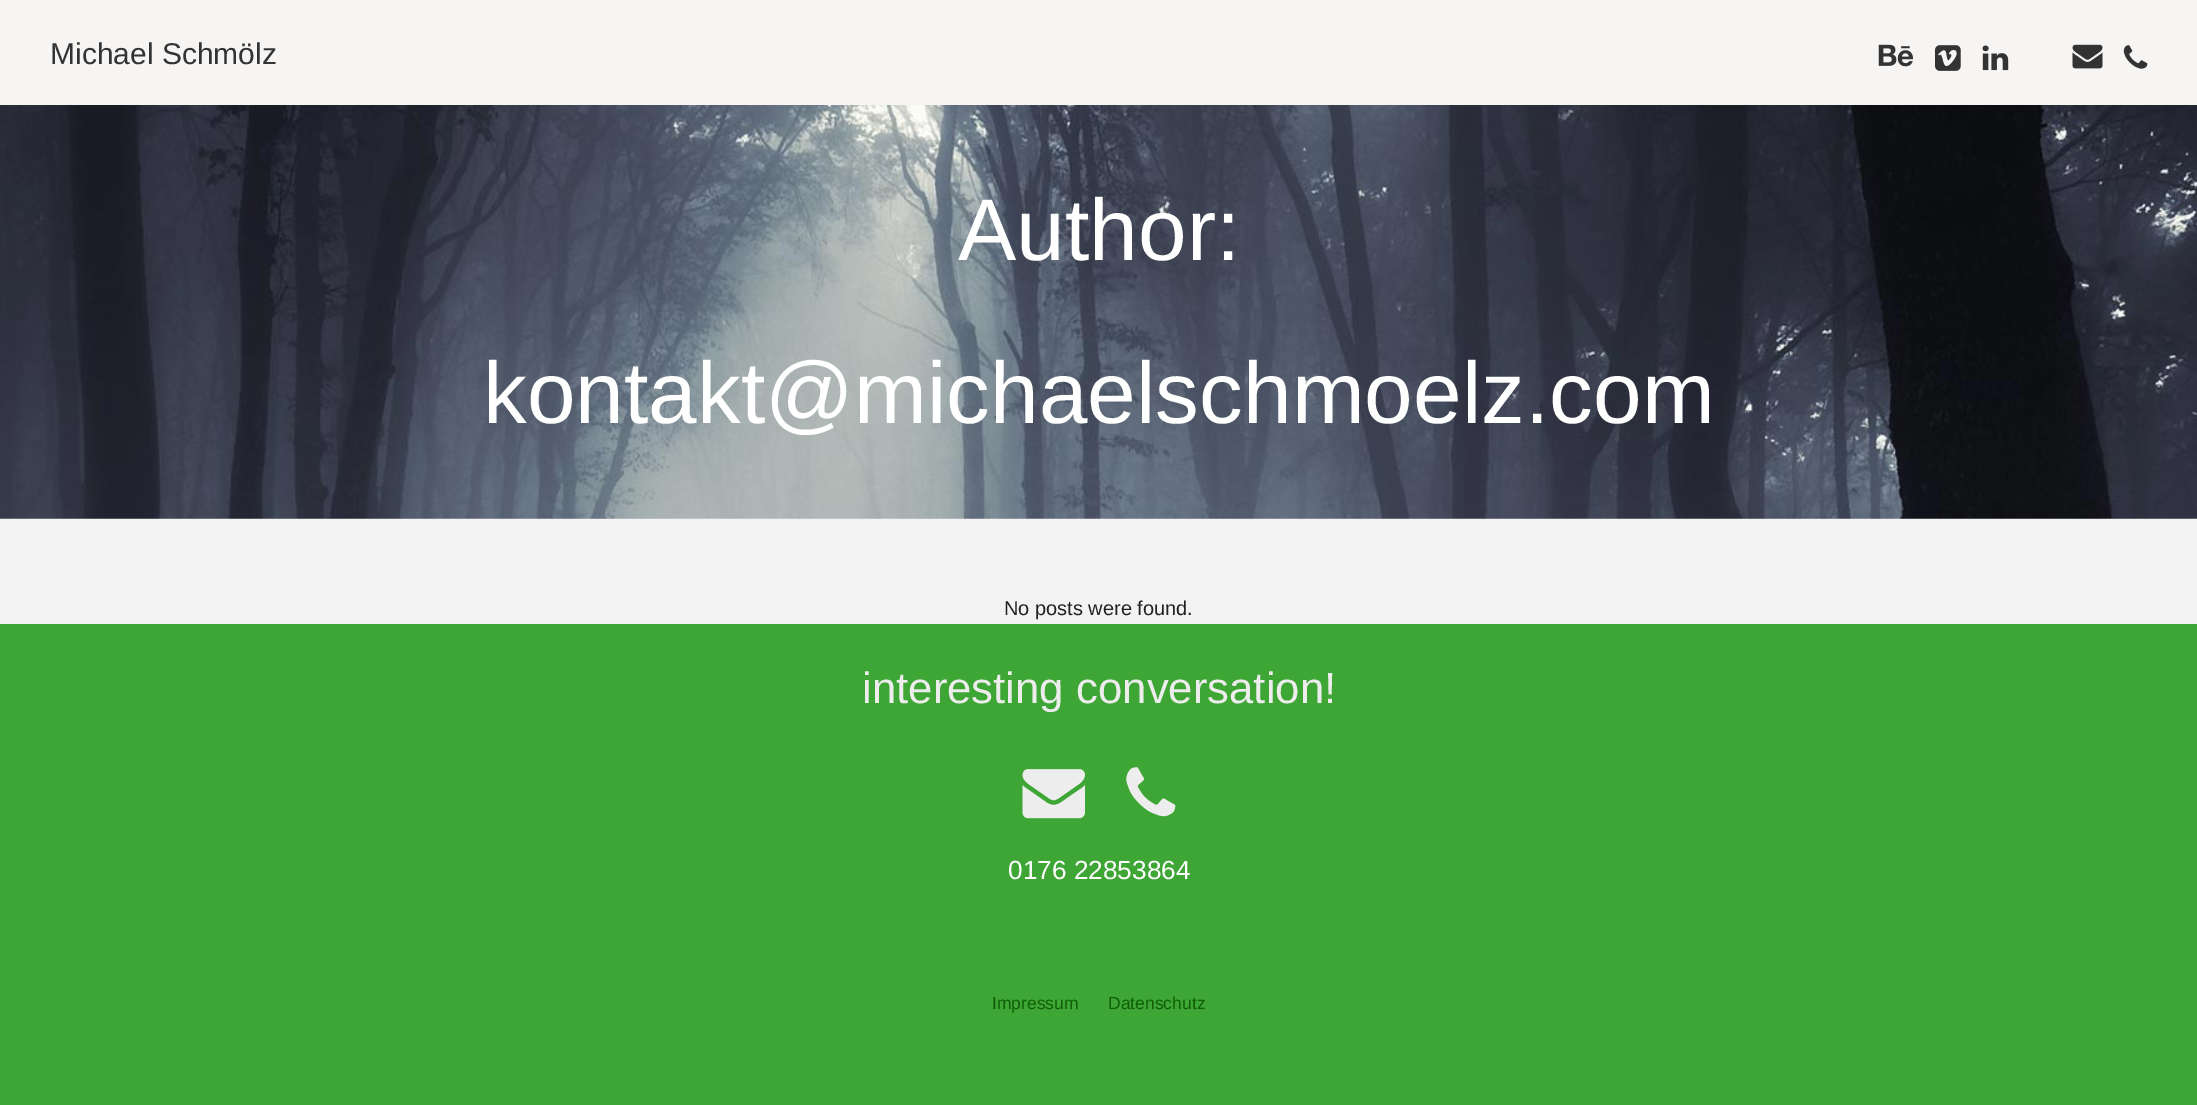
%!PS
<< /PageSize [2197 1105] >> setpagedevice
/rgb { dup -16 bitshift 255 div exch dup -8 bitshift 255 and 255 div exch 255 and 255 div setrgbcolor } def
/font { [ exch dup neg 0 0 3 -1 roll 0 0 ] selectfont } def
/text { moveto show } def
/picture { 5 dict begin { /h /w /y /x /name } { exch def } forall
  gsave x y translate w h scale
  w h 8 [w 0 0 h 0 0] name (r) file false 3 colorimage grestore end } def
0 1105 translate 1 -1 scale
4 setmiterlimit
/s1 { /LiberationSans-Regular 30 font 16#333333 rgb } def
/s2 { /LiberationSans-Regular 87.5 font 16#FFFFFF rgb } def
/s3 { /LiberationSans-Regular 20 font 16#222222 rgb } def
/s4 { /LiberationSans-Regular 43.75 font 16#EDEDED rgb } def
/s5 { /LiberationSans-Regular 26.25 font 16#FFFFFF rgb } def
/s6 { /LiberationSans-Regular 17.5 font 16#0F5E07 rgb } def
16#3DA634 rgb
0 0 2197 1105 rectfill
16#F6F5F4 rgb
0 0 2197 105 rectfill
s1
(Michael Schmölz) 50 64 text
(pic1.raw) 1878 44 35 23 picture
(pic2.raw) 1935 45 26 26 picture
(pic3.raw) 1982 45 27 26 picture
(pic4.raw) 2072 44 31 25 picture
(pic5.raw) 2123 45 25 24 picture
16#F3F3F3 rgb
0 518 2197 106 rectfill
(pic6.raw) 0 105 2197 414 picture
s2
(Author:) 958 260 text
(kontakt@michaelschmoelz.com) 483 423 text
s3
(No posts were found.) 1004 615 text
s4
(interesting conversation!) 862 703 text
(pic7.raw) 1022 769 63 50 picture
(pic8.raw) 1126 767 50 50 picture
s5
(0176 22853864) 1008 879 text
s6
(Impressum) 992 1009 text
(Datenschutz) 1108 1009 text
showpage
